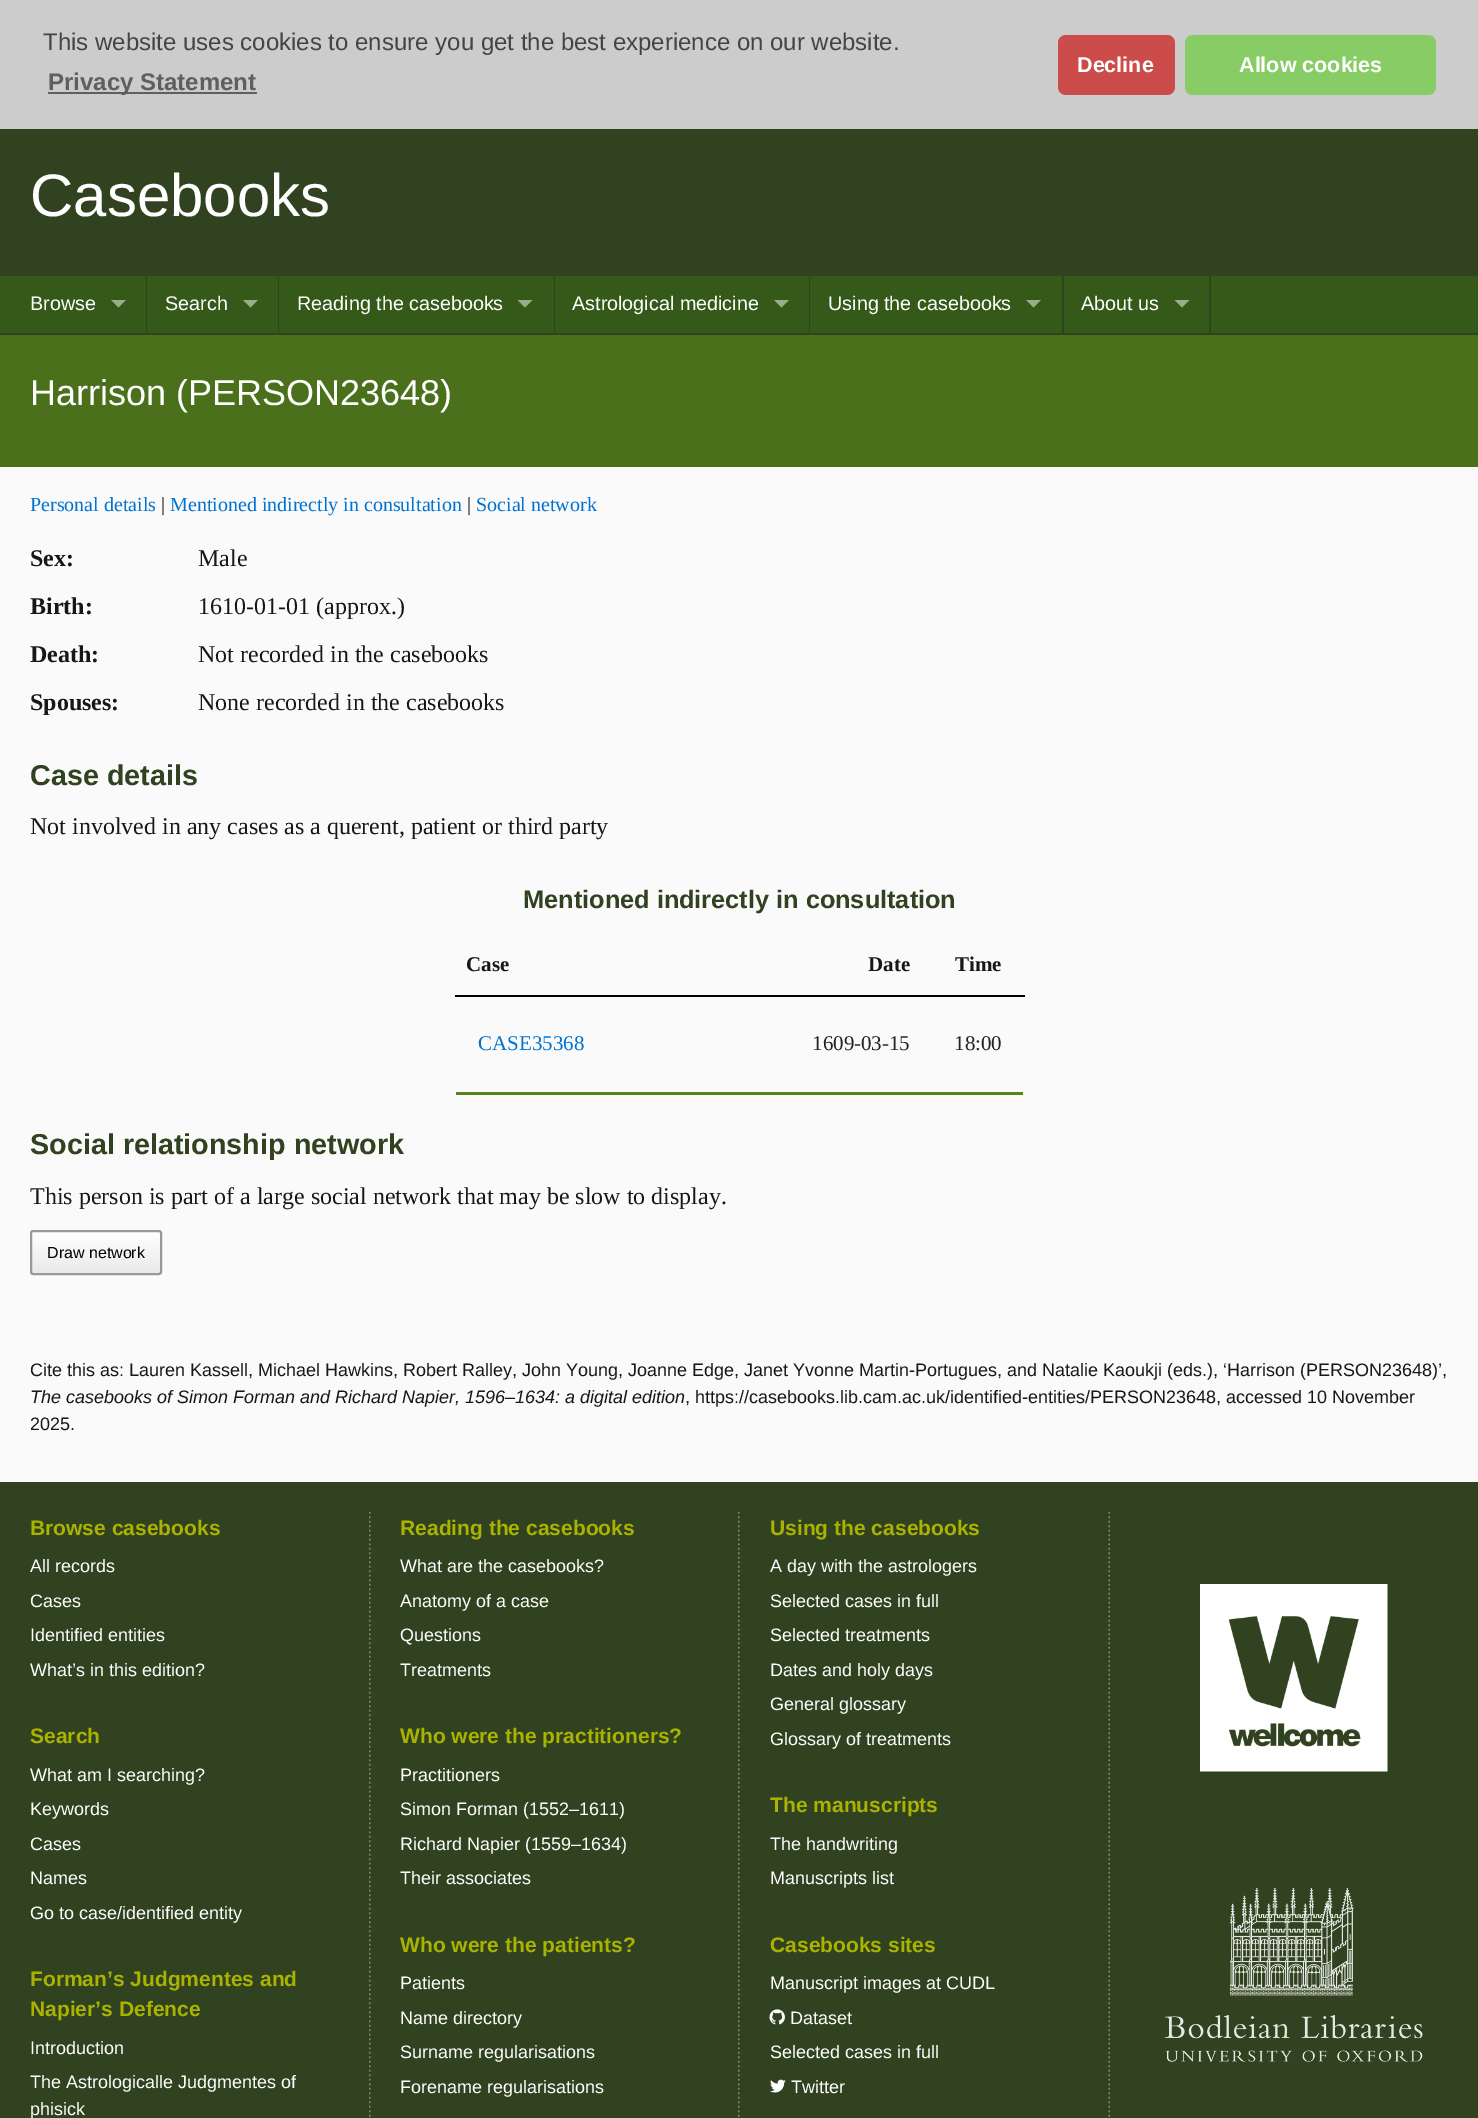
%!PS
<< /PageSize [1478 2118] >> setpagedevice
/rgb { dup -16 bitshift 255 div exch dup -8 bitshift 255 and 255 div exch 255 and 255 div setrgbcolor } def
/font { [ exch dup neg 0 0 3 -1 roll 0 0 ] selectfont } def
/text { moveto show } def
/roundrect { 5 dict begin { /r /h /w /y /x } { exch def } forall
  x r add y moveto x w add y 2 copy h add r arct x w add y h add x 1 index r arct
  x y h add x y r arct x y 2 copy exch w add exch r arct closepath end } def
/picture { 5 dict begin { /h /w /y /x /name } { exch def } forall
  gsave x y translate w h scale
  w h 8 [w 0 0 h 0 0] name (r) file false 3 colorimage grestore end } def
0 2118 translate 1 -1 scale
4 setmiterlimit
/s1 { /LiberationSans-Regular 24 font 16#444444 rgb } def
/s2 { /LiberationSans-Bold 24 font 16#5F5F5F rgb } def
/s3 { /LiberationSans-Bold 21.5 font 16#FFFFFF rgb } def
/s4 { /LiberationSans-Regular 60 font 16#FFFFFF rgb } def
/s5 { /LiberationSans-Regular 19.75 font 16#FFFFFF rgb } def
/s6 { /LiberationSans-Regular 36 font 16#FFFFFF rgb } def
/s7 { /LiberationSerif-Regular 20 font 16#0072CF rgb } def
/s8 { /LiberationSerif-Regular 20 font 16#171717 rgb } def
/s9 { /LiberationSerif-Bold 24 font 16#171717 rgb } def
/s10 { /LiberationSerif-Regular 24 font 16#171717 rgb } def
/s11 { /LiberationSans-Bold 28.75 font 16#304220 rgb } def
/s12 { /LiberationSans-Bold 25.3 font 16#304220 rgb } def
/s13 { /LiberationSerif-Bold 21 font 16#171717 rgb } def
/s14 { /LiberationSerif-Regular 21 font 16#0072CF rgb } def
/s15 { /LiberationSerif-Regular 21 font 16#222222 rgb } def
/s16 { /LiberationSans-Regular 16 font 16#000000 rgb } def
/s17 { /LiberationSans-Regular 18 font 16#171717 rgb } def
/s18 { /LiberationSans-Italic 18 font 16#171717 rgb } def
/s19 { /LiberationSans-Bold 21 font 16#AAB300 rgb } def
/s20 { /LiberationSans-Regular 18 font 16#FFFFFF rgb } def
16#304220 rgb
0 0 1478 2118 rectfill
16#CCCCCC rgb
0 0 1478 129 rectfill
s1
(This website uses cookies to ensure you get the best experience on our website.) 43 50 text
16#5F5F5F rgb
48 92 209 2 rectfill
s2
(Privacy Statement) 48 90 text
16#CC4B4B rgb
1058 35 117 60 8 roundrect fill
s3
(Decline) 1077 72 text
16#88CC66 rgb
1185 35 251 60 8 roundrect fill
s3
(Allow cookies) 1239 72 text
s4
(Casebooks) 30 216 text
16#355918 rgb
0 276 1478 57 rectfill
16#304220 rgb
146 276 1 57 rectfill
s5
(Browse) 30 310 text
16#9AAC8C rgb
111 300 moveto 126 300 lineto 118.5 307.5 lineto closepath fill
16#304220 rgb
278 276 1 57 rectfill
s5
(Search) 165 310 text
16#9AAC8C rgb
243 300 moveto 258 300 lineto 250.5 307.5 lineto closepath fill
16#304220 rgb
554 276 1 57 rectfill
s5
(Reading the casebooks) 297 310 text
16#9AAC8C rgb
517.5 300 moveto 532.5 300 lineto 525 307.5 lineto closepath fill
16#304220 rgb
809 276 1 57 rectfill
s5
(Astrological medicine) 572 310 text
16#9AAC8C rgb
774 300 moveto 789 300 lineto 781.5 307.5 lineto closepath fill
16#304220 rgb
1062 276 2 57 rectfill
s5
(Using the casebooks) 828 310 text
16#9AAC8C rgb
1026 300 moveto 1041 300 lineto 1033.5 307.5 lineto closepath fill
16#304220 rgb
1209 276 2 57 rectfill
s5
(About us) 1081 310 text
16#9AAC8C rgb
1174.5 300 moveto 1189.5 300 lineto 1182 307.5 lineto closepath fill
16#4B701C rgb
0 335 1478 132 rectfill
s6
(Harrison \(PERSON23648\)) 30 405 text
16#FAFAFA rgb
0 467 1478 1015 rectfill
s7
(Personal details) 30 511 text
s8
(|) 161 511 text
s7
(Mentioned indirectly in consultation) 170 511 text
s8
(|) 467 511 text
s7
(Social network) 476 511 text
s9
(Sex:) 30 566 text
s10
(Male) 198 566 text
s9
(Birth:) 30 614 text
s10
(1610-01-01 \(approx.\)) 198 614 text
s9
(Death:) 30 662 text
s10
(Not recorded in the casebooks) 198 662 text
s9
(Spouses:) 30 710 text
s10
(None recorded in the casebooks) 198 710 text
s11
(Case details) 30 785 text
s10
(Not involved in any cases as a querent, patient or third party) 30 834 text
s12
(Mentioned indirectly in consultation) 523 908 text
16#57831A rgb
456 1092 567 3 rectfill
s13
(Case) 466 971 text
(Date) 868 971 text
16#000000 rgb
455 995 570 2 rectfill
s13
(Time) 955 971 text
s14
(CASE35368) 478 1050 text
s15
(1609-03-15) 812 1050 text
(18:00) 954 1050 text
s11
(Social relationship network) 30 1154 text
s10
(This person is part of a large social network that may be slow to display.) 30 1204 text
gsave
30 1230 132 45 3 roundrect clip newpath
gsave 30 1232 moveto 162 1232 lineto 162 1274 lineto 30 1274 lineto closepath clip newpath
<< /ShadingType 2 /ColorSpace /DeviceRGB /Coords [96 1232 96 1274] /Extend [true true] /Function << /FunctionType 2 /Domain [0 1] /C0 [1 1 1] /C1 [0.914 0.914 0.914] /N 1 >> >> shfill grestore
grestore
16#999999 rgb
2 setlinewidth
31 1231 130 43 2 roundrect stroke
s16
(Draw network) 47 1258 text
s17
(Cite this as: Lauren Kassell, Michael Hawkins, Robert Ralley, John Young, Joanne Edge, Janet Yvonne Martin-Portugues, and Natalie Kaoukji \(eds.\), ‘Harrison \(PERSON23648\)’,) 30 1376 text
s18
(The casebooks of Simon Forman and Richard Napier, 1596–1634: a digital edition) 30 1403 text
s17
(, https://casebooks.lib.cam.ac.uk/identified-entities/PERSON23648, accessed 10 November) 685 1403 text
(2025.) 30 1430 text
(pic1.raw) 369 1512 2 605 picture
s19
(Browse casebooks) 30 1535 text
s20
(All records) 30 1572 text
(Cases) 30 1607 text
(Identified entities) 30 1641 text
(What’s in this edition?) 30 1676 text
s19
(Search) 30 1743 text
s20
(What am I searching?) 30 1781 text
(Keywords) 30 1815 text
(Cases) 30 1850 text
(Names) 30 1884 text
(Go to case/identified entity) 30 1919 text
s19
(Forman’s Judgmentes and) 30 1986 text
(Napier’s Defence) 30 2016 text
s20
(Introduction) 30 2054 text
(The Astrologicalle Judgmentes of) 30 2088 text
(phisick) 30 2115 text
(pic1.raw) 738 1512 2 605 picture
s19
(Reading the casebooks) 400 1535 text
s20
(What are the casebooks?) 400 1572 text
(Anatomy of a case) 400 1607 text
(Questions) 400 1641 text
(Treatments) 400 1676 text
s19
(Who were the practitioners?) 400 1743 text
s20
(Practitioners) 400 1781 text
(Simon Forman \(1552–1611\)) 400 1815 text
(Richard Napier \(1559–1634\)) 400 1850 text
(Their associates) 400 1884 text
s19
(Who were the patients?) 400 1952 text
s20
(Patients) 400 1989 text
(Name directory) 400 2024 text
(Surname regularisations) 400 2058 text
(Forename regularisations) 400 2093 text
(pic2.raw) 1108 1512 2 605 picture
s19
(Using the casebooks) 770 1535 text
s20
(A day with the astrologers) 770 1572 text
(Selected cases in full) 770 1607 text
(Selected treatments) 770 1641 text
(Dates and holy days) 770 1676 text
(General glossary) 770 1710 text
(Glossary of treatments) 770 1745 text
s19
(The manuscripts) 770 1812 text
s20
(The handwriting) 770 1850 text
(Manuscripts list) 770 1884 text
s19
(Casebooks sites) 770 1952 text
s20
(Manuscript images at CUDL) 770 1989 text
(pic3.raw) 769 2009 16 16 picture
(Dataset) 790 2024 text
(Selected cases in full) 770 2058 text
(pic4.raw) 770 2079 16 14 picture
(Twitter) 791 2093 text
(pic5.raw) 1200 1584 188 188 picture
(pic6.raw) 1164 1887 259 175 picture
showpage
